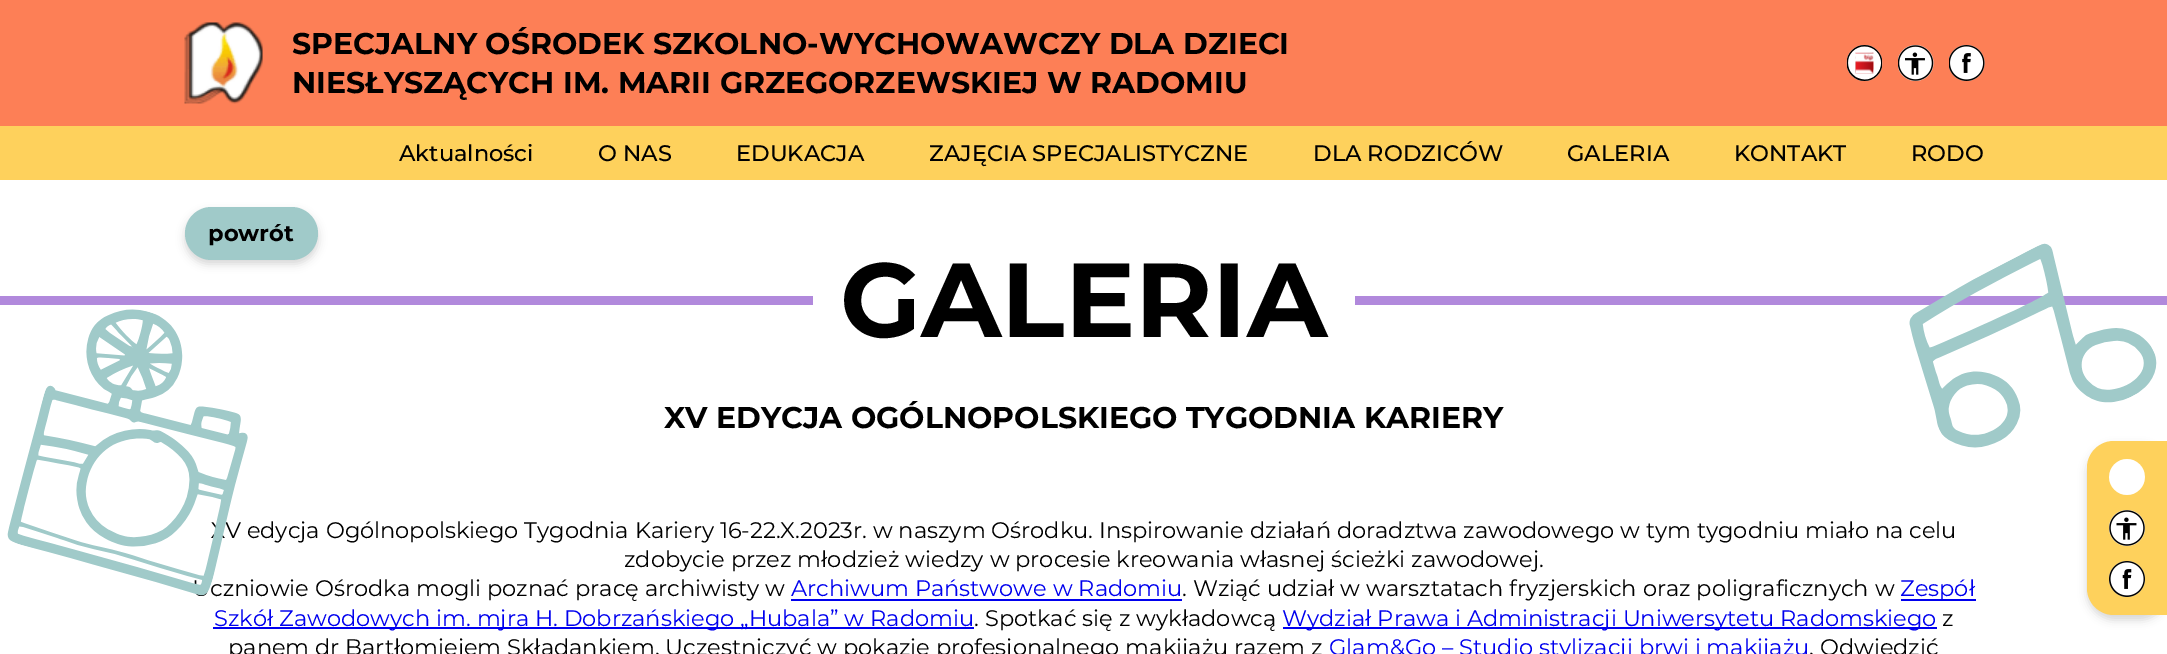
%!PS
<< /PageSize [2167 654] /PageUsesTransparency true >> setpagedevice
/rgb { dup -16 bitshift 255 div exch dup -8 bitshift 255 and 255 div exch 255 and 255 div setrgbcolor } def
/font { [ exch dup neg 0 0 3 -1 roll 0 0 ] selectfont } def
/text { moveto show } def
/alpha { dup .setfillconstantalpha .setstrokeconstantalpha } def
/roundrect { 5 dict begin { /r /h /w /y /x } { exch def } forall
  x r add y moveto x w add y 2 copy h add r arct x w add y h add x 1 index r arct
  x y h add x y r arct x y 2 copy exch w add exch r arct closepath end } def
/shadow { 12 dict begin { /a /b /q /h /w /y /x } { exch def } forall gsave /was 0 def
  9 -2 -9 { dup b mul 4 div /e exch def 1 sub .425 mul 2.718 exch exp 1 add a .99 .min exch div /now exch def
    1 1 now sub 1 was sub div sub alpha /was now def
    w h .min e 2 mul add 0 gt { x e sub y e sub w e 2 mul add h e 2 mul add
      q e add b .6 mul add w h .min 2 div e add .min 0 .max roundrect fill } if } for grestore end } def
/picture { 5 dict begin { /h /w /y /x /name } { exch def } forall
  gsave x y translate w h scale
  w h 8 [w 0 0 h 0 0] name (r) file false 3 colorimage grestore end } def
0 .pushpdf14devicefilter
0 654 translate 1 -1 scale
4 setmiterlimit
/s1 { /Montserrat-Bold 30 font 16#000000 rgb } def
/s2 { /Montserrat-Medium 22.5 font 16#000000 rgb } def
/s3 { /Montserrat-Bold 22.5 font 16#000000 rgb } def
/s4 { /Montserrat-Bold 105 font 16#000000 rgb } def
/s5 { /Montserrat-Regular 22.5 font 16#000000 rgb } def
/s6 { /Montserrat-Regular 22.5 font 16#0000EE rgb } def
16#FFFFFF rgb
0 0 2167 654 rectfill
16#FD7F56 rgb
0 0 2167 126 rectfill
(pic1.raw) 184 22 79 82 picture
s1
(SPECJALNY OŚRODEK SZKOLNO-WYCHOWAWCZY DLA DZIECI) 292 54 text
(NIESŁYSZĄCYCH IM. MARII GRZEGORZEWSKIEJ W RADOMIU) 292 93 text
(pic2.raw) 1846 45 37 36 picture
(pic3.raw) 1898 45 36 36 picture
(pic4.raw) 1949 45 36 36 picture
16#FED15C rgb
0 126 2167 54 rectfill
s2
(Aktualności) 399 161 text
(O NAS) 598 161 text
(EDUKACJA) 736 161 text
(ZAJĘCIA SPECJALISTYCZNE) 929 161 text
(DLA RODZICÓW) 1313 161 text
(GALERIA) 1567 161 text
(KONTAKT) 1734 161 text
(RODO) 1911 161 text
185 212 133 52 26 4.5 0.16 shadow
16#A0CAC9 rgb
185 207 133 53 26.5 roundrect fill
s3
(powrót) 208 241 text
16#B189DC rgb
0 296 813 9 rectfill
s4
(GALERIA) 840 337 text
16#B189DC rgb
1355 296 812 9 rectfill
s1
(XV EDYCJA OGÓLNOPOLSKIEGO TYGODNIA KARIERY) 664 428 text
s5
(V edycja Ogólnopolskiego Tygodnia Kariery 16-22.X.2023r. w naszym Ośrodku. Inspirowanie działań doradztwa zawodowego w tym tygodniu miało na celu) 225 538 text
(czniowie Ośrodka mogli poznać pracę archiwisty w) 210 596 text
(pic5.raw) 7 309 241 287 picture
(zdobycie przez młodzież wiedzy w procesie kreowania własnej ścieżki zawodowej.) 624 567 text
s6
(Archiwum Państwowe w Radomiu) 791 596 text
791 599 391 2 rectfill
s5
(. Wziąć udział w warsztatach fryzjerskich oraz poligraficznych w) 1182 596 text
16#0000EE rgb
1901 599 75 2 rectfill
(Zespół) 1900 596 text
213 627 761 2 rectfill
(Szkół Zawodowych im. mjra H. Dobrzańskiego „Hubala” w Radomiu) 214 626 text
s5
(. Spotkać się z wykładowcą) 974 626 text
16#0000EE rgb
1283 627 654 2 rectfill
(Wydział Prawa i Administracji Uniwersytetu Radomskiego) 1282 626 text
s5
(z) 1942 626 text
(panem dr Bartłomiejem Składankiem. Uczestniczyć w pokazie profesjonalnego makijażu razem z) 228 655 text
s6
(Glam&Go – Studio stylizacji brwi i makijażu) 1329 655 text
s5
(. Odwiedzić) 1809 655 text
(pic6.raw) 1909 243 248 205 picture
2087 446 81 174 27 4.5 0.16 shadow
16#FED15C rgb
2114 441 moveto 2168 441 lineto 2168 615 lineto 2114 615 lineto 2099 615 2087 603 2087 588 curveto 2087 468 lineto 2087 453 2099 441 2114 441 curveto closepath fill
(pic7.raw) 2109 459 36 36 picture
(pic8.raw) 2109 510 36 36 picture
(pic9.raw) 2109 561 36 36 picture
.poppdf14devicefilter showpage
